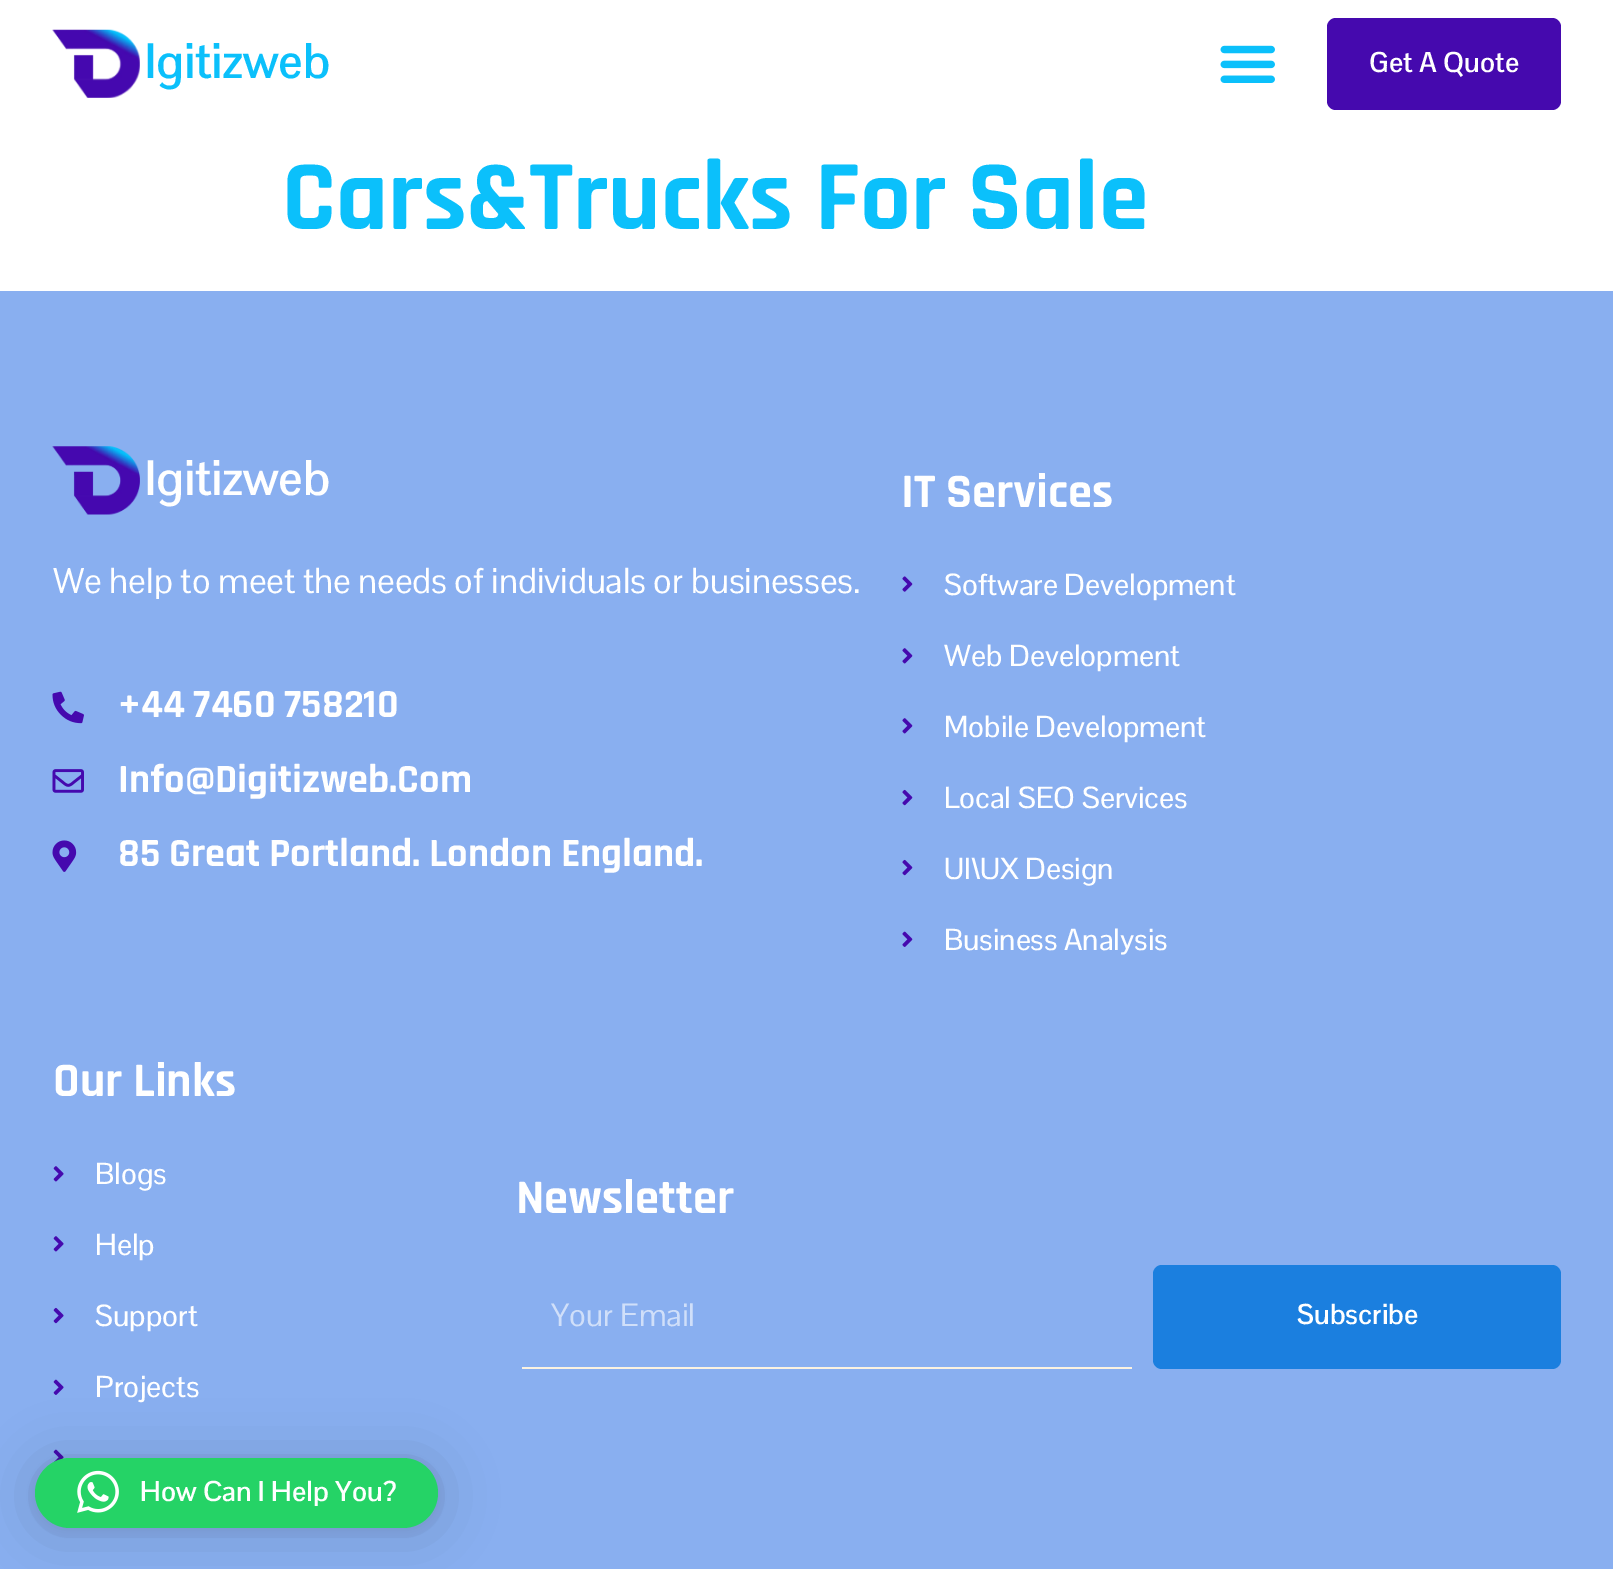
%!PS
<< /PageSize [1613 1569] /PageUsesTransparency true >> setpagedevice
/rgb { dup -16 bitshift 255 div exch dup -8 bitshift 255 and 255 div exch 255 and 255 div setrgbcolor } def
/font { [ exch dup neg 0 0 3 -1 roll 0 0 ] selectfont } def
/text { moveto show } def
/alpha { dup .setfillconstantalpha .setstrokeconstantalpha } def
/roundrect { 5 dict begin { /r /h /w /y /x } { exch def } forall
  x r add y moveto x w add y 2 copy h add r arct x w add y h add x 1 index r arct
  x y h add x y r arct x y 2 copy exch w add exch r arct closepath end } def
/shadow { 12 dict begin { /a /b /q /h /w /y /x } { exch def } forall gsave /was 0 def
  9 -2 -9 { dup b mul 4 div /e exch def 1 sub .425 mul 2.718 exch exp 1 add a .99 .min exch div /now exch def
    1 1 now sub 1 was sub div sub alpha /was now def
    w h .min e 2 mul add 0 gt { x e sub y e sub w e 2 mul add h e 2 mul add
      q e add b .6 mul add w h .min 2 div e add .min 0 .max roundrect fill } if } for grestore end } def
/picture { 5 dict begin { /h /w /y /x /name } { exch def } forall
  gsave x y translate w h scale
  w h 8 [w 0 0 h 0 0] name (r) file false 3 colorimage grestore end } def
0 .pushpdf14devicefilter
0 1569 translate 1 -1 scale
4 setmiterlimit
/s1 { /PontanoSans-Bold 48.5 font 16#0BC0FB rgb } def
/s2 { /PontanoSans-Bold 28 font 16#FFFFFF rgb } def
/s3 { /Rajdhani-Bold 100.25 font 16#0BC0FB rgb } def
/s4 { /PontanoSans-Bold 48.5 font 16#FFFFFF rgb } def
/s5 { /PontanoSans-Regular 35 font 16#FFFFFF rgb } def
/s6 { /Rajdhani-Bold 40.3 font 16#FFFFFF rgb } def
/s7 { /Rajdhani-Bold 48.5 font 16#FFFFFF rgb } def
/s8 { /PontanoSans-Medium 29.75 font 16#FFFFFF rgb } def
/s9 { /PontanoSans-Regular 31.5 font 16#D0DFF9 rgb } def
16#FFFFFF rgb
0 0 1613 1569 rectfill
(pic1.raw) 52 29 88 69 picture
s1
(Igitizweb) 145 78 text
(pic2.raw) 1220 45 55 38 picture
16#4509AE rgb
1327 18 234 92 9 roundrect fill
s2
(Get A Quote) 1369 72 text
s3
(Cars&Trucks For Sale) 282 229 text
16#89AFF0 rgb
0 291 1613 1278 rectfill
(pic3.raw) 52 446 88 69 picture
s4
(Igitizweb) 145 495 text
s5
(We help to meet the needs of individuals or businesses.) 53 593 text
(pic4.raw) 52 691 32 33 picture
s6
(+44 7460 758210) 118 717 text
(pic5.raw) 52 769 32 24 picture
(Info@Digitizweb.Com) 118 792 text
(pic6.raw) 52 840 25 32 picture
(85 Great Portland. London England.) 118 866 text
s7
(IT Services) 901 507 text
(pic7.raw) 902 576 11 16 picture
s8
(Software Development) 944 595 text
(pic8.raw) 902 648 11 16 picture
(Web Development) 944 666 text
(pic8.raw) 902 718 11 16 picture
(Mobile Development) 944 737 text
(pic9.raw) 902 789 11 17 picture
(Local SEO Services) 944 808 text
(pic9.raw) 902 859 11 17 picture
(UI\\UX Design) 944 879 text
(pic10.raw) 902 931 11 16 picture
(Business Analysis) 944 950 text
s7
(Our Links) 53 1096 text
(pic11.raw) 53 1166 11 16 picture
s8
(Blogs) 95 1184 text
(pic11.raw) 53 1236 11 16 picture
(Help) 95 1255 text
(pic12.raw) 53 1307 11 17 picture
(Support) 95 1326 text
(pic13.raw) 53 1379 11 16 picture
(Projects) 95 1397 text
(pic14.raw) 53 1449 11 14 picture
s7
(Newsletter) 516 1213 text
16#FBF2E0 rgb
522 1367 610 2 rectfill
s9
(Your Email) 551 1326 text
16#1B7FDF rgb
1153 1265 408 104 9 roundrect fill
s2
(Subscribe) 1297 1324 text
16#000000 rgb
35 1461 403 70 35 28 0.16 shadow
35 1460 403 70 35 5 0.06 shadow
16#25D366 rgb
35 1458 403 70 35 roundrect fill
(pic15.raw) 77 1470 42 43 picture
s2
(How Can I Help You?) 140 1501 text
.poppdf14devicefilter showpage
